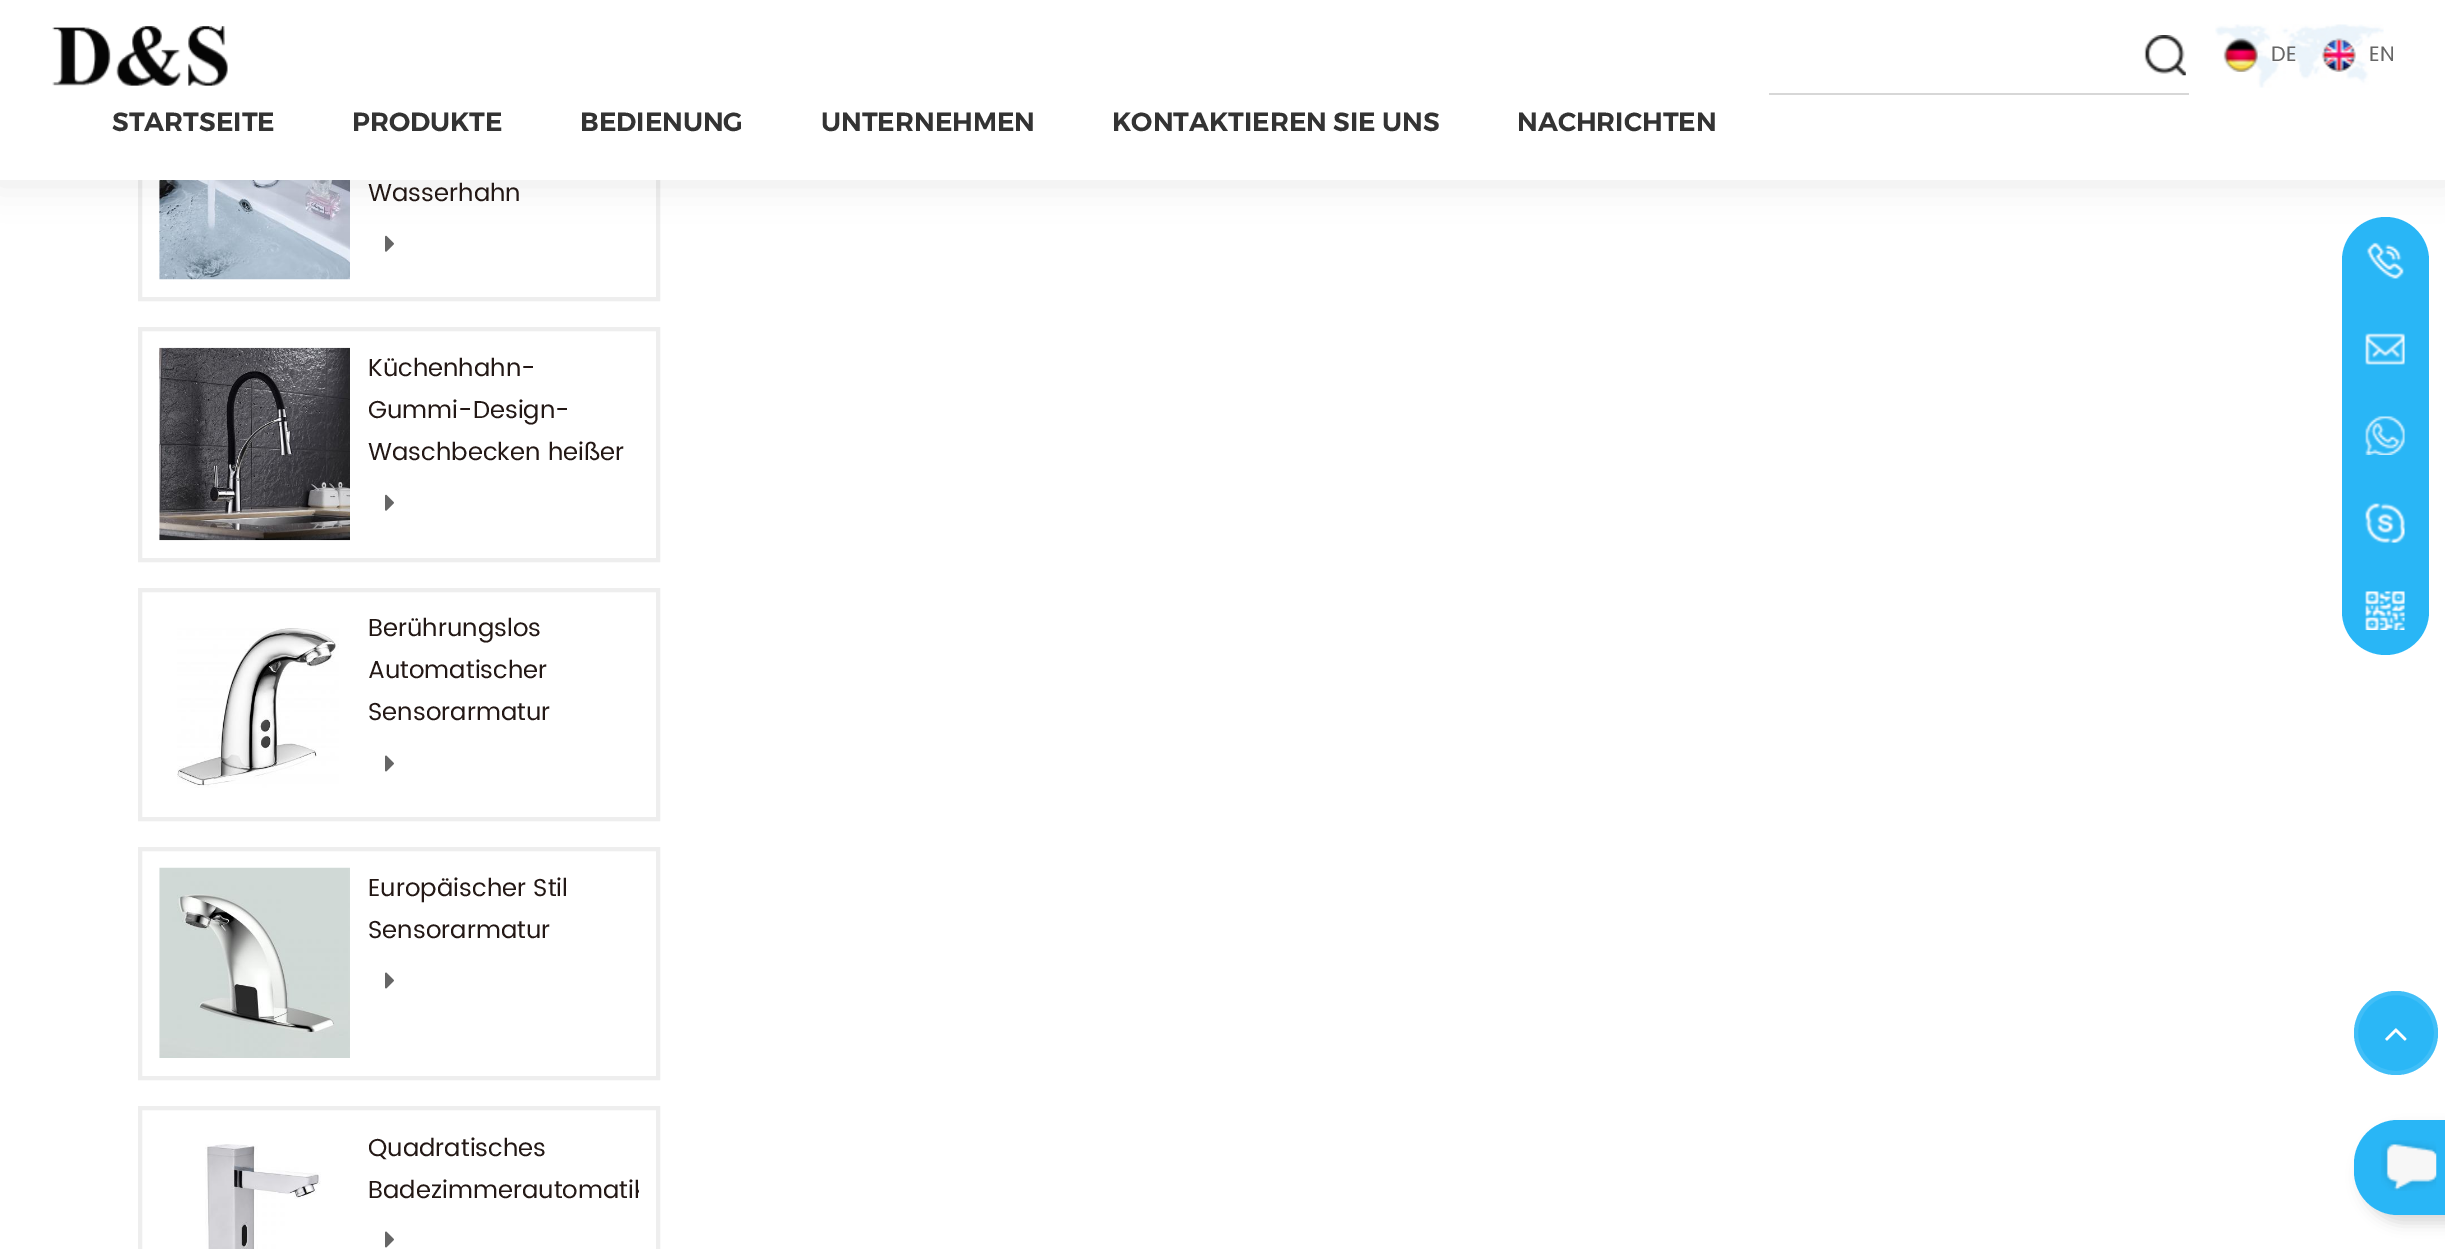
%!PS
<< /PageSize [2445 1249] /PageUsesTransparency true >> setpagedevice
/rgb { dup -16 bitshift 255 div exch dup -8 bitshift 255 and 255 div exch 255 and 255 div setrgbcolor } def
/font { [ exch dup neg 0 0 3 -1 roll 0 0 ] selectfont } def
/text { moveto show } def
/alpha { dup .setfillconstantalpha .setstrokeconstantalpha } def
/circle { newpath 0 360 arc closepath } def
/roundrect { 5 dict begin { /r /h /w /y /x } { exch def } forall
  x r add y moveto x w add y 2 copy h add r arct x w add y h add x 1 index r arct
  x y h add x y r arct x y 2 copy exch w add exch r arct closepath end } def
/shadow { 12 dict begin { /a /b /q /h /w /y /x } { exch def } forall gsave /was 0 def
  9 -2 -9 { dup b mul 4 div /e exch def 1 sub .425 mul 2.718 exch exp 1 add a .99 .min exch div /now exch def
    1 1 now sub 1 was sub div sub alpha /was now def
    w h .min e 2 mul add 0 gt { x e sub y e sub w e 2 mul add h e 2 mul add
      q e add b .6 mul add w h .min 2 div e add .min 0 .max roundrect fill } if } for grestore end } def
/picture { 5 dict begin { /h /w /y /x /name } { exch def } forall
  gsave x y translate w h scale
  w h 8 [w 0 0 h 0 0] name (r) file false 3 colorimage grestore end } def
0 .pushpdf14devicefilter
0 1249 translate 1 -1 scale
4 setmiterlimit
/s1 { /Poppins-Regular 21 font 16#666666 rgb } def
/s2 { /Montserrat-SemiBold 26.25 font 16#333333 rgb } def
/s3 { /Poppins-Regular 24.5 font 16#231815 rgb } def
16#FFFFFF rgb
0 0 2445 1249 rectfill
16#EEEEEE rgb
4 setlinewidth
140 70 518 229 rectstroke
(pic6.raw) 159 180 191 100 picture
(pic7.raw) 385 235 9 17 picture
16#000000 rgb
-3 -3 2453 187 0 17.5 0.08 shadow
16#FFFFFF rgb
0 0 2445 180 rectfill
(pic1.raw) 52 26 176 60 picture
(pic2.raw) 2144 35 42 41 picture
16#D7D7D7 rgb
1769 93 420 2 rectfill
(pic3.raw) 2215 24 169 64 picture
(pic4.raw) 2223 38 35 34 picture
s1
(DE) 2271 61 text
(pic5.raw) 2321 38 35 34 picture
(EN) 2369 61 text
s2
(STARTSEITE) 112 131 text
(PRODUKTE) 352 131 text
(BEDIENUNG) 580 131 text
(UNTERNEHMEN) 821 131 text
(KONTAKTIEREN SIE UNS) 1112 131 text
(NACHRICHTEN) 1517 131 text
s3
(Wasserhahn) 368 201 text
16#EEEEEE rgb
140 329 518 231 rectstroke
(pic8.raw) 159 347 191 194 picture
s3
(Küchenhahn-) 368 376 text
(Gummi-Design-) 368 418 text
(Waschbecken heißer) 368 460 text
(pic7.raw) 385 494 9 17 picture
16#EEEEEE rgb
140 590 518 229 rectstroke
(pic9.raw) 177 628 162 160 picture
s3
(Berührungslos) 368 636 text
(Automatischer) 368 678 text
(Sensorarmatur) 368 720 text
(pic10.raw) 385 755 9 17 picture
16#EEEEEE rgb
140 849 518 229 rectstroke
(pic11.raw) 159 867 191 191 picture
s3
(Europäischer Stil) 368 896 text
(Sensorarmatur) 368 938 text
(pic10.raw) 385 972 9 17 picture
16#EEEEEE rgb
140 1108 518 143 rectstroke
(pic12.raw) 205 1144 116 105 picture
s3
(Quadratisches) 368 1156 text
gsave
368 1127 271 84 rectclip
(Badezimmerautomatik) 368 1198 text
grestore
(pic10.raw) 385 1231 9 17 picture
16#29B6F6 rgb
2385.5 217 moveto 2409.5 217 2429 236.5 2429 260.5 curveto 2429 305 lineto 2342 305 lineto 2342 260.5 lineto 2342 236.5 2361.5 217 2385.5 217 curveto closepath fill
(pic13.raw) 2366 242 38 37 picture
2342 305 87 175 rectfill
(pic14.raw) 2365 333 40 32 picture
(pic15.raw) 2365 416 40 39 picture
2342 480 87 87 rectfill
(pic16.raw) 2365 503 40 40 picture
2342 567 moveto 2429 567 lineto 2429 611.5 lineto 2429 635.5 2409.5 655 2385.5 655 curveto 2361.5 655 2342 635.5 2342 611.5 curveto closepath fill
(pic17.raw) 2365 591 40 39 picture
16#2BB7F6 rgb
2396 1033 42 circle fill
0.1 alpha
16#FFFFFF rgb
2396 1033 40 circle stroke
1 alpha
(pic18.raw) 2385 1028 22 13 picture
16#000000 rgb
2361 1129 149 94 44 7 0.15 shadow
16#29B6F6 rgb
2398 1120 moveto 2445 1120 lineto 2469.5 1120 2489 1139.5 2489 1164 curveto 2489 1215 lineto 2398 1215 lineto 2373.5 1215 2354 1195.5 2354 1171 curveto 2354 1164 lineto 2354 1139.5 2373.5 1120 2398 1120 curveto closepath fill
(pic19.raw) 2381 1140 56 51 picture
.poppdf14devicefilter showpage
